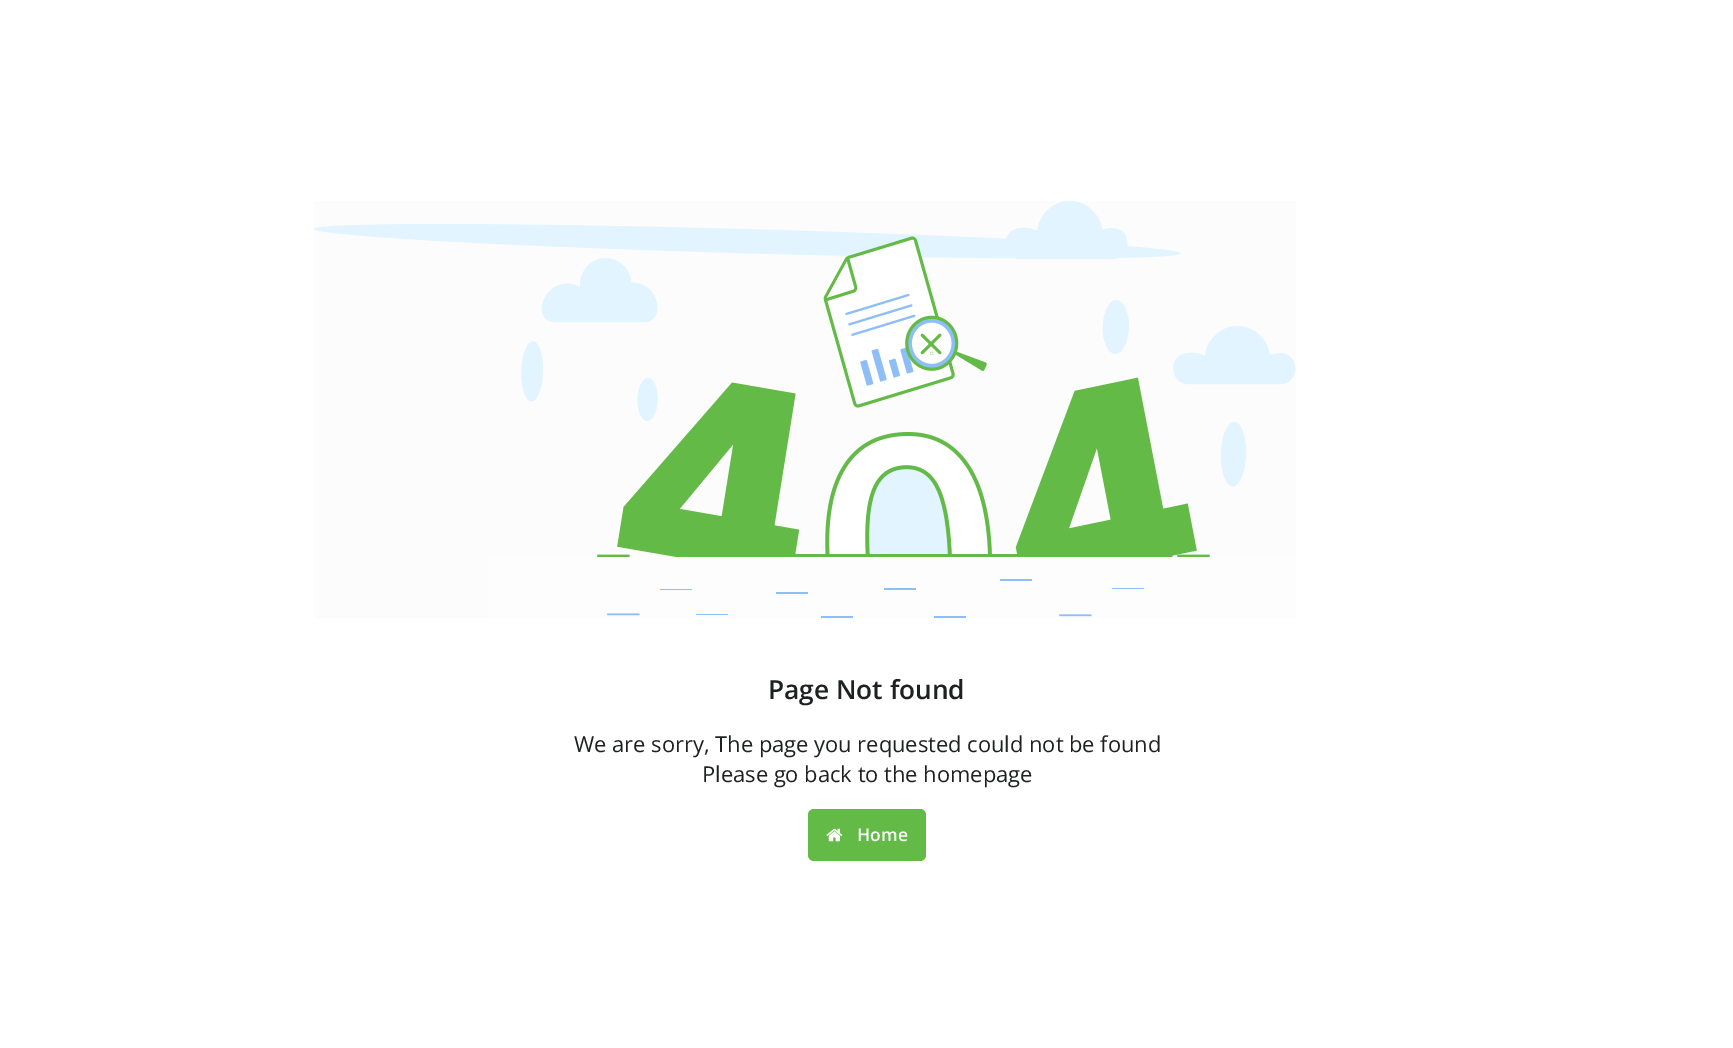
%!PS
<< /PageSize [1733 1048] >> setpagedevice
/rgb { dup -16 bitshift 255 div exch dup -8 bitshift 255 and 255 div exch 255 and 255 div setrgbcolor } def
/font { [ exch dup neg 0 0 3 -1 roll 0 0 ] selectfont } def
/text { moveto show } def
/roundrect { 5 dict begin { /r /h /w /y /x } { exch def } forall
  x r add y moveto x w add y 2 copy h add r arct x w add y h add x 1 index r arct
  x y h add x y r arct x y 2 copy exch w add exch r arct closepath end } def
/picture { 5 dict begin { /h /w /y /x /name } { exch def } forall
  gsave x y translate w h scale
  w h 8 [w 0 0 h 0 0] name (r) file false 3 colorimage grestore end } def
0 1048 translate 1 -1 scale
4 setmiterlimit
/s1 { /OpenSans-SemiBold 26.25 font 16#1E2022 rgb } def
/s2 { /OpenSans-Regular 21.9 font 16#1E2022 rgb } def
/s3 { /OpenSans-SemiBold 17.5 font 16#FFFFFF rgb } def
16#FFFFFF rgb
0 0 1733 1048 rectfill
(pic1.raw) 314 201 982 417 picture
s1
(Page Not found) 768 699 text
s2
(We are sorry, The page you requested could not be found) 574 752 text
(Please go back to the homepage) 702 782 text
16#63BA46 rgb
808 809 118 52 6 roundrect fill
(pic2.raw) 826 828 17 14 picture
s3
(Home) 857 841 text
showpage
